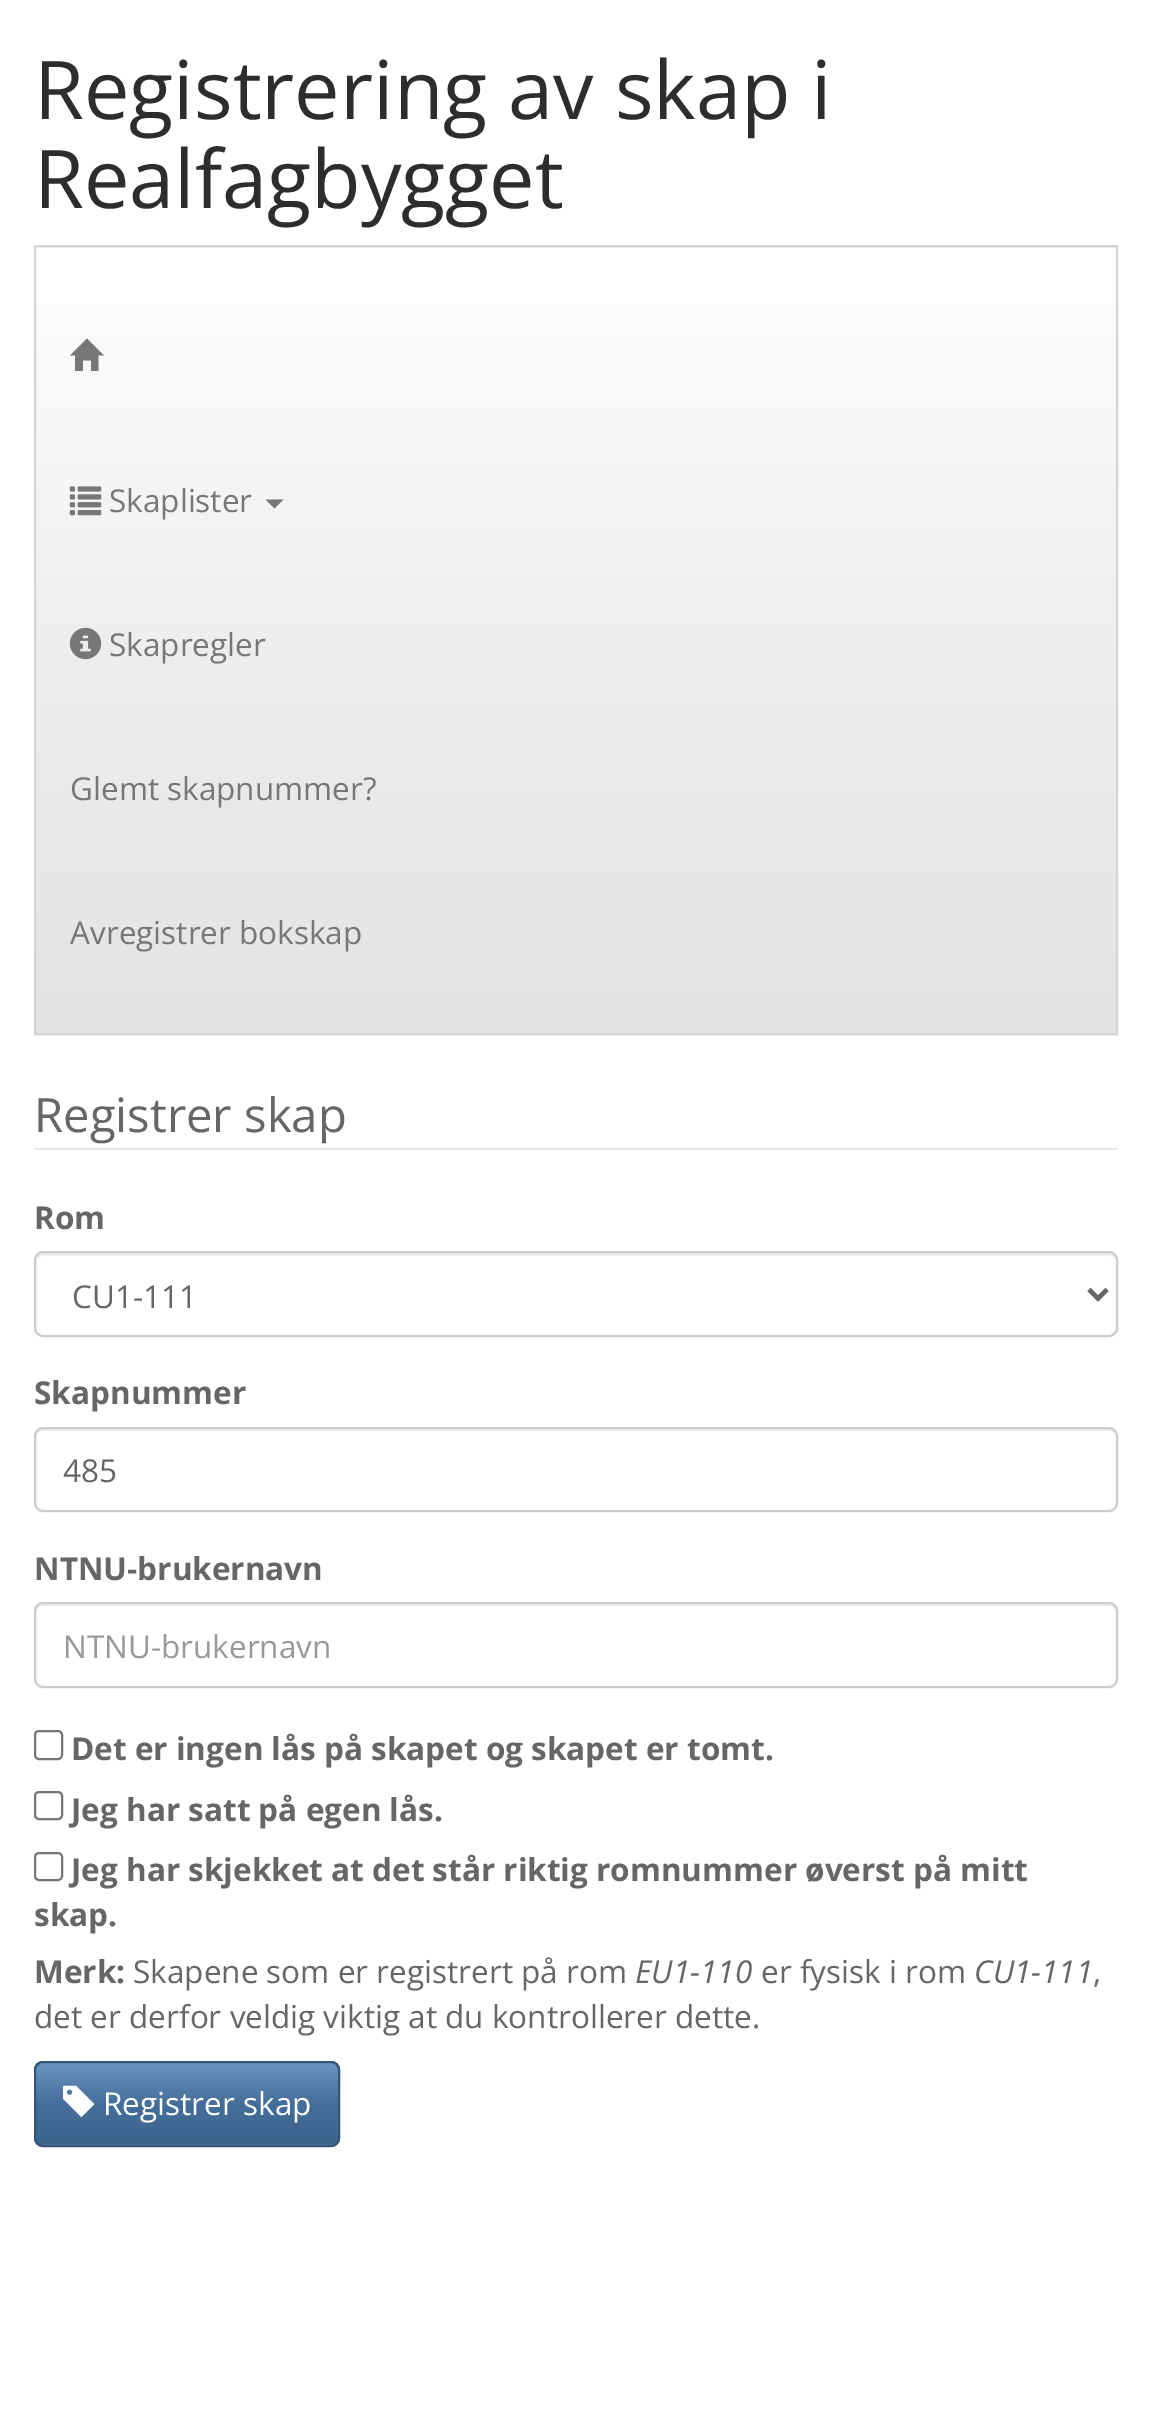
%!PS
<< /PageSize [1150 2412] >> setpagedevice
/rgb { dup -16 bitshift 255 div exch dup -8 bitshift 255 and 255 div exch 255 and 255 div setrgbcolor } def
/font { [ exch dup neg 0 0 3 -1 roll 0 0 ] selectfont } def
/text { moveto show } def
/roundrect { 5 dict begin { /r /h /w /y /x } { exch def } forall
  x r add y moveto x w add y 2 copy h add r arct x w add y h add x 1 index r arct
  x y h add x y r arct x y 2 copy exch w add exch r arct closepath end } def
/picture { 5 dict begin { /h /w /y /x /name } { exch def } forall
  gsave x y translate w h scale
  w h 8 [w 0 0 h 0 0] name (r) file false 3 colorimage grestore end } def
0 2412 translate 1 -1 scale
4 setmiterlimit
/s1 { /OpenSans-Regular 81 font 16#2D2D2D rgb } def
/s2 { /OpenSans-Regular 31.5 font 16#777777 rgb } def
/s3 { /OpenSans-Regular 47.25 font 16#666666 rgb } def
/s4 { /OpenSans-Bold 31.5 font 16#666666 rgb } def
/s5 { /OpenSans-Regular 31.5 font 16#666666 rgb } def
/s6 { /OpenSans-Regular 31.5 font 16#999999 rgb } def
/s7 { /OpenSans-Italic 31.5 font 16#666666 rgb } def
/s8 { /OpenSans-Regular 31.5 font 16#FFFFFF rgb } def
16#FFFFFF rgb
0 0 1150 2412 rectfill
s1
(Registrering av skap i) 34 119 text
(Realfagbygget) 34 208 text
16#EEEEEE rgb
36 247 1080 1 rectfill
gsave 36 305 moveto 1116 305 lineto 1116 1033 lineto 36 1033 lineto closepath clip newpath
<< /ShadingType 2 /ColorSpace /DeviceRGB /Coords [576 247 576 1033] /Extend [true true] /Function << /FunctionType 3 /Domain [0 1] /Functions [<< /FunctionType 2 /Domain [0 1] /C0 [1 1 1] /C1 [0.933 0.933 0.933] /N 1 >> << /FunctionType 2 /Domain [0 1] /C0 [0.933 0.933 0.933] /C1 [0.894 0.894 0.894] /N 1 >>] /Bounds [0.5] /Encode [0 1 0 1] >> >> shfill grestore
16#D5D5D5 rgb
2 setlinewidth
35 246 1082 788 rectstroke
16#777777 rgb
70 355.5 moveto 87 338.5 lineto 104 355.5 lineto 98.5 355.5 lineto 98.5 371 lineto 91 371 lineto 91 360.5 lineto 83 360.5 lineto 83 371 lineto 75 371 lineto 75 355.5 lineto closepath fill
(pic1.raw) 69 486 33 30 picture
s2
(Skaplister) 109 512 text
265.5 499.5 moveto 283.5 499.5 lineto 274.5 508.5 lineto closepath fill
(pic2.raw) 69 627 33 33 picture
(Skapregler) 109 656 text
(Glemt skapnummer?) 70 800 text
(Avregistrer bokskap) 70 944 text
16#E5E5E5 rgb
34 1148 1084 2 rectfill
s3
(Registrer skap) 34 1132 text
s4
(Rom) 34 1229 text
16#ECECEC rgb
43 1256 moveto 1109 1256 lineto 1113 1256 1116 1259 1116 1262 curveto 1116 1258 1114 1253 1109 1253 curveto 43 1253 lineto 38 1253 36 1258 36 1262 curveto 36 1259 39 1256 43 1256 curveto closepath fill
16#CCCCCC rgb
35 1252 1082 84 8 roundrect stroke
16#666666 rgb
4.5 setlinewidth
1089 1289.5 moveto 1098 1298.5 lineto 1107 1289.5 lineto stroke
s5
(CU1-111) 72 1308 text
s4
(Skapnummer) 34 1404 text
16#ECECEC rgb
43 1431 moveto 1109 1431 lineto 1113 1431 1116 1434 1116 1438 curveto 1116 1434 1114 1429 1109 1429 curveto 43 1429 lineto 38 1429 36 1434 36 1438 curveto 36 1434 39 1431 43 1431 curveto closepath fill
16#CCCCCC rgb
2 setlinewidth
35 1428 1082 83 8 roundrect stroke
s5
(485) 63 1482 text
s4
(NTNU-brukernavn) 34 1580 text
16#ECECEC rgb
43 1606 moveto 1109 1606 lineto 1113 1606 1116 1610 1116 1613 curveto 1116 1609 1114 1604 1109 1604 curveto 43 1604 lineto 38 1604 36 1609 36 1613 curveto 36 1610 39 1606 43 1606 curveto closepath fill
16#CCCCCC rgb
35 1603 1082 84 8 roundrect stroke
s6
(NTNU-brukernavn) 63 1658 text
16#767676 rgb
35 1731 27 28 4 roundrect stroke
s4
(Det er ingen lås på skapet og skapet er tomt.) 71 1760 text
16#767676 rgb
35 1792 27 27 4 roundrect stroke
s4
(Jeg har satt på egen lås.) 71 1821 text
16#767676 rgb
35 1853 27 27 4 roundrect stroke
s4
(Jeg har skjekket at det står riktig romnummer øverst på mitt) 71 1881 text
(skap.) 34 1926 text
(Merk:) 34 1983 text
s5
(Skapene som er registrert på rom) 133 1983 text
s7
(EU1-110) 635 1983 text
s5
(er fysisk i rom) 761 1983 text
s7
(CU1-111) 974 1983 text
s5
(,) 1093 1983 text
(det er derfor veldig viktig at du kontrollerer dette.) 34 2028 text
16#446E9B rgb
34 2061 306 86 9 roundrect fill
gsave
34 2061 306 86 9 roundrect clip newpath
gsave 36 2063 moveto 338 2063 lineto 338 2144 lineto 36 2144 lineto closepath clip newpath
<< /ShadingType 2 /ColorSpace /DeviceRGB /Coords [187 2063 187 2144] /Extend [true true] /Function << /FunctionType 3 /Domain [0 1] /Functions [<< /FunctionType 2 /Domain [0 1] /C0 [0.427 0.58 0.749] /C1 [0.267 0.431 0.608] /N 1 >> << /FunctionType 2 /Domain [0 1] /C0 [0.267 0.431 0.608] /C1 [0.243 0.392 0.553] /N 1 >>] /Bounds [0.5] /Encode [0 1 0 1] >> >> shfill grestore
grestore
16#345578 rgb
35 2062 304 84 8 roundrect stroke
(pic3.raw) 63 2085 32 33 picture
s8
(Registrer skap) 103 2115 text
showpage
